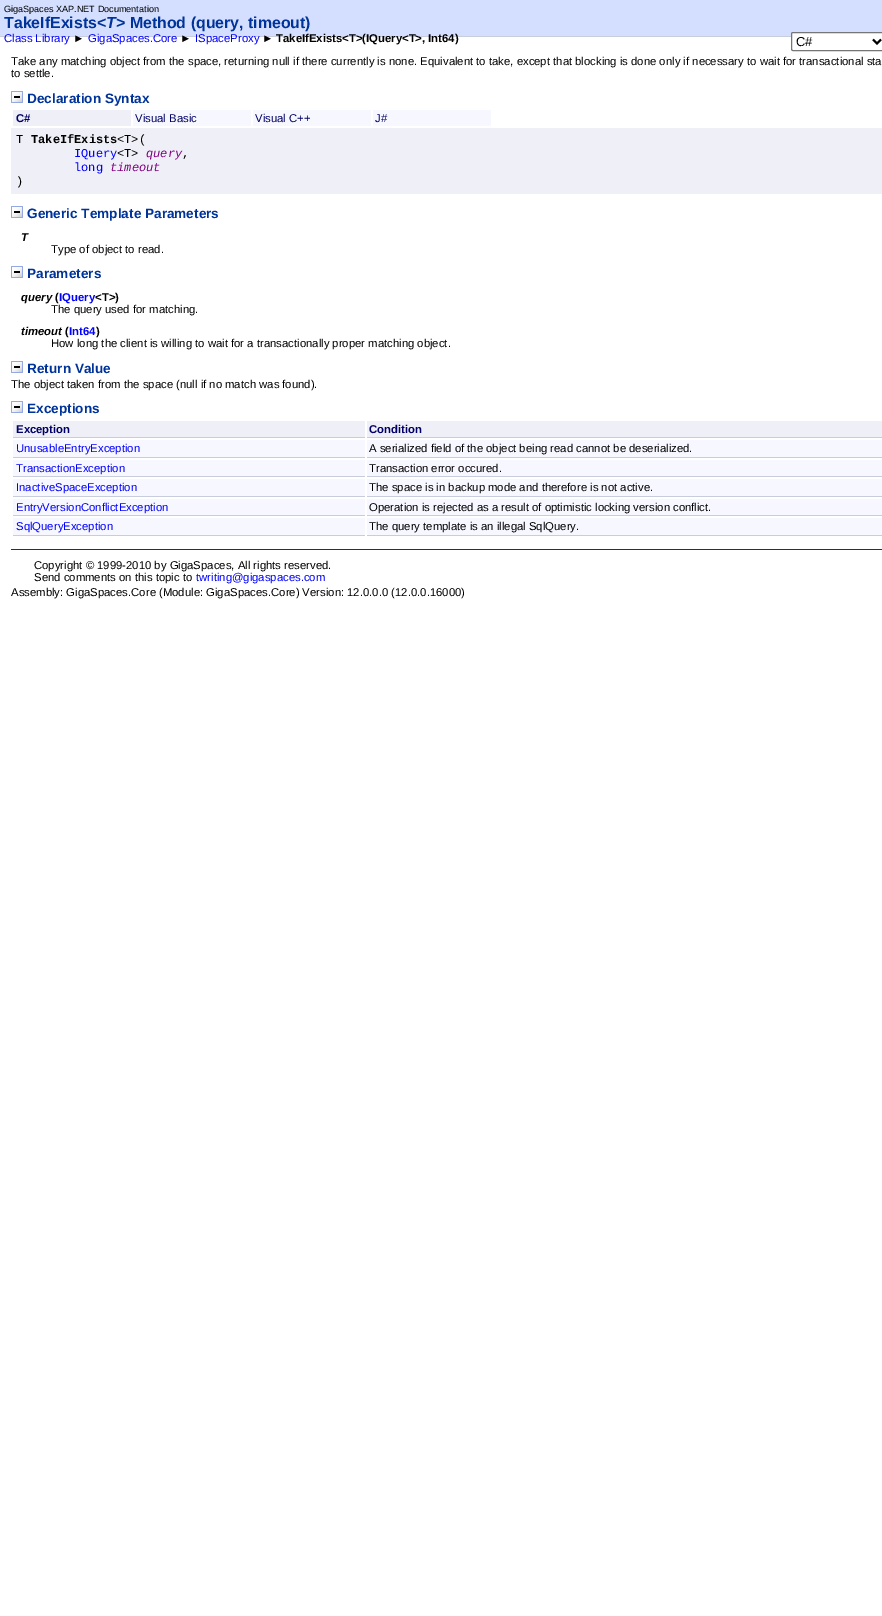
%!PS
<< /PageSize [882 1616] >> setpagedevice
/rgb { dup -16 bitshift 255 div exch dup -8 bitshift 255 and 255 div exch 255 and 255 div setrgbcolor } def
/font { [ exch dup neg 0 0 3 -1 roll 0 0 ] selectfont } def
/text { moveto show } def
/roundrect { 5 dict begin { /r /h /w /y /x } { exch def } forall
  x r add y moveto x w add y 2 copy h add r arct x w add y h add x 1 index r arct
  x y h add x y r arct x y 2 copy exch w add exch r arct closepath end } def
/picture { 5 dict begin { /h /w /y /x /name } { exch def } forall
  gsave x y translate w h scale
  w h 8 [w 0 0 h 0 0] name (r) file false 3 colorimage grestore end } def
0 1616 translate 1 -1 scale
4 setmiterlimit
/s1 { /LiberationSans-Regular 9.1 font 16#000000 rgb } def
/s2 { /LiberationSans-Bold 15.9 font 16#003399 rgb } def
/s3 { /LiberationSans-BoldItalic 15.9 font 16#003399 rgb } def
/s4 { /LiberationSans-Regular 11.33 font 16#0000FF rgb } def
/s5 { /LiberationSans-Regular 11.33 font 16#000000 rgb } def
/s6 { /LiberationSans-Bold 11.33 font 16#000000 rgb } def
/s7 { /LiberationSans-Regular 13 font 16#000000 rgb } def
/s8 { /LiberationSans-Bold 13.6 font 16#003399 rgb } def
/s9 { /LiberationSans-Bold 11.33 font 16#000066 rgb } def
/s10 { /LiberationSans-Regular 11.33 font 16#000066 rgb } def
/s11 { /LiberationMono-Regular 12 font 16#000000 rgb } def
/s12 { /LiberationMono-Bold 12 font 16#000000 rgb } def
/s13 { /LiberationMono-Regular 12 font 16#0000FF rgb } def
/s14 { /LiberationMono-Italic 12 font 16#800080 rgb } def
/s15 { /LiberationSans-BoldItalic 11.33 font 16#000000 rgb } def
/s16 { /LiberationSans-Bold 11.33 font 16#0000FF rgb } def
16#FFFFFF rgb
0 0 882 1616 rectfill
16#D4DFFF rgb
0 0 882 36 rectfill
16#C8CDDE rgb
0 36 791 1 rectfill
s1
(GigaSpaces XAP.NET Documentation) 4 12 text
s2
(TakeIfExists<) 4 28 text
s3
(T) 106 28 text
s2
(> Method \(query, timeout\)) 116 28 text
s4
(Class Library) 4 42 text
s5
(►) 73 42 text
s4
(GigaSpaces.Core) 88 42 text
s5
(►) 180 42 text
s4
(ISpaceProxy) 195 42 text
s5
(►) 262 42 text
s6
(TakeIfExists<T>\(IQuery<T>, Int64\)) 276 42 text
16#FFFFFF rgb
791.5 32.5 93 18 1.5 roundrect gsave fill grestore
16#767676 rgb
stroke
16#000000 rgb
2 setlinewidth
873 39.5 moveto 877 43.5 lineto 881 39.5 lineto stroke
s7
(C#) 796 46 text
s5
(Take any matching object from the space, returning null if there currently is none. Equivalent to take, except that blocking is done only if necessary to wait for transactional sta) 11 65 text
(to settle.) 11 77 text
(pic1.raw) 11 91 12 12 picture
s8
(Declaration Syntax) 27 103 text
16#EFEFF7 rgb
13 110 118 16 rectfill
s9
(C#) 16 122 text
16#F7F7FF rgb
133 110 118 16 rectfill
s10
(Visual Basic) 135 122 text
16#F7F7FF rgb
253 110 118 16 rectfill
s10
(Visual C++) 255 122 text
16#F7F7FF rgb
373 110 118 16 rectfill
s10
(J#) 375 122 text
16#EFEFF7 rgb
11 128 871 66 rectfill
s11
(T) 16 143 text
s12
(TakeIfExists) 31 143 text
s11
(<T>\() 117 143 text
s13
(IQuery) 74 157 text
s11
(<T>) 117 157 text
s14
(query) 146 157 text
s11
(,) 182 157 text
s13
(long) 74 171 text
s14
(timeout) 110 171 text
s11
(\)) 16 185 text
(pic1.raw) 11 206 12 12 picture
s8
(Generic Template Parameters) 27 218 text
s15
(T) 21 241 text
s5
(Type of object to read.) 51 253 text
(pic1.raw) 11 266 12 12 picture
s8
(Parameters) 27 278 text
s15
(query) 21 301 text
s6
(\() 55 301 text
s16
(IQuery) 59 301 text
s6
(<T>\)) 95 301 text
s5
(The query used for matching.) 51 313 text
s15
(timeout) 21 335 text
s6
(\() 65 335 text
s16
(Int64) 69 335 text
s6
(\)) 96 335 text
s5
(How long the client is willing to wait for a transactionally proper matching object.) 51 347 text
(pic1.raw) 11 361 12 12 picture
s8
(Return Value) 27 373 text
s5
(The object taken from the space \(null if no match was found\).) 11 388 text
(pic1.raw) 11 401 12 12 picture
s8
(Exceptions) 27 413 text
16#EFEFF7 rgb
13 421 352 16 rectfill
16#C8CDDE rgb
13 437 352 1 rectfill
s9
(Exception) 16 433 text
16#EFEFF7 rgb
367 421 515 16 rectfill
16#C8CDDE rgb
367 437 515 1 rectfill
s9
(Condition) 369 433 text
16#F7F7FF rgb
13 440 352 17 rectfill
16#C8CDDE rgb
13 457 352 1 rectfill
s4
(UnusableEntryException) 16 452 text
16#F7F7FF rgb
367 440 515 17 rectfill
16#C8CDDE rgb
367 457 515 1 rectfill
s5
(A serialized field of the object being read cannot be deserialized.) 369 452 text
16#F7F7FF rgb
13 460 352 16 rectfill
16#C8CDDE rgb
13 476 352 1 rectfill
s4
(TransactionException) 16 472 text
16#F7F7FF rgb
367 460 515 16 rectfill
16#C8CDDE rgb
367 476 515 1 rectfill
s5
(Transaction error occured.) 369 472 text
16#F7F7FF rgb
13 479 352 17 rectfill
16#C8CDDE rgb
13 496 352 1 rectfill
s4
(InactiveSpaceException) 16 491 text
16#F7F7FF rgb
367 479 515 17 rectfill
16#C8CDDE rgb
367 496 515 1 rectfill
s5
(The space is in backup mode and therefore is not active.) 369 491 text
16#F7F7FF rgb
13 499 352 16 rectfill
16#C8CDDE rgb
13 515 352 1 rectfill
s4
(EntryVersionConflictException) 16 511 text
16#F7F7FF rgb
367 499 515 16 rectfill
16#C8CDDE rgb
367 515 515 1 rectfill
s5
(Operation is rejected as a result of optimistic locking version conflict.) 369 511 text
16#F7F7FF rgb
13 518 352 17 rectfill
16#C8CDDE rgb
13 535 352 1 rectfill
s4
(SqlQueryException) 16 530 text
16#F7F7FF rgb
367 518 515 17 rectfill
16#C8CDDE rgb
367 535 515 1 rectfill
s5
(The query template is an illegal SqlQuery.) 369 530 text
16#003399 rgb
11 549 871 1 rectfill
s5
(Copyright © 1999-2010 by GigaSpaces, All rights reserved.) 34 569 text
(Send comments on this topic to) 34 581 text
s4
(twriting@gigaspaces.com) 196 581 text
s5
(Assembly: GigaSpaces.Core \(Module: GigaSpaces.Core\) Version: 12.0.0.0 \(12.0.0.16000\)) 11 596 text
showpage
